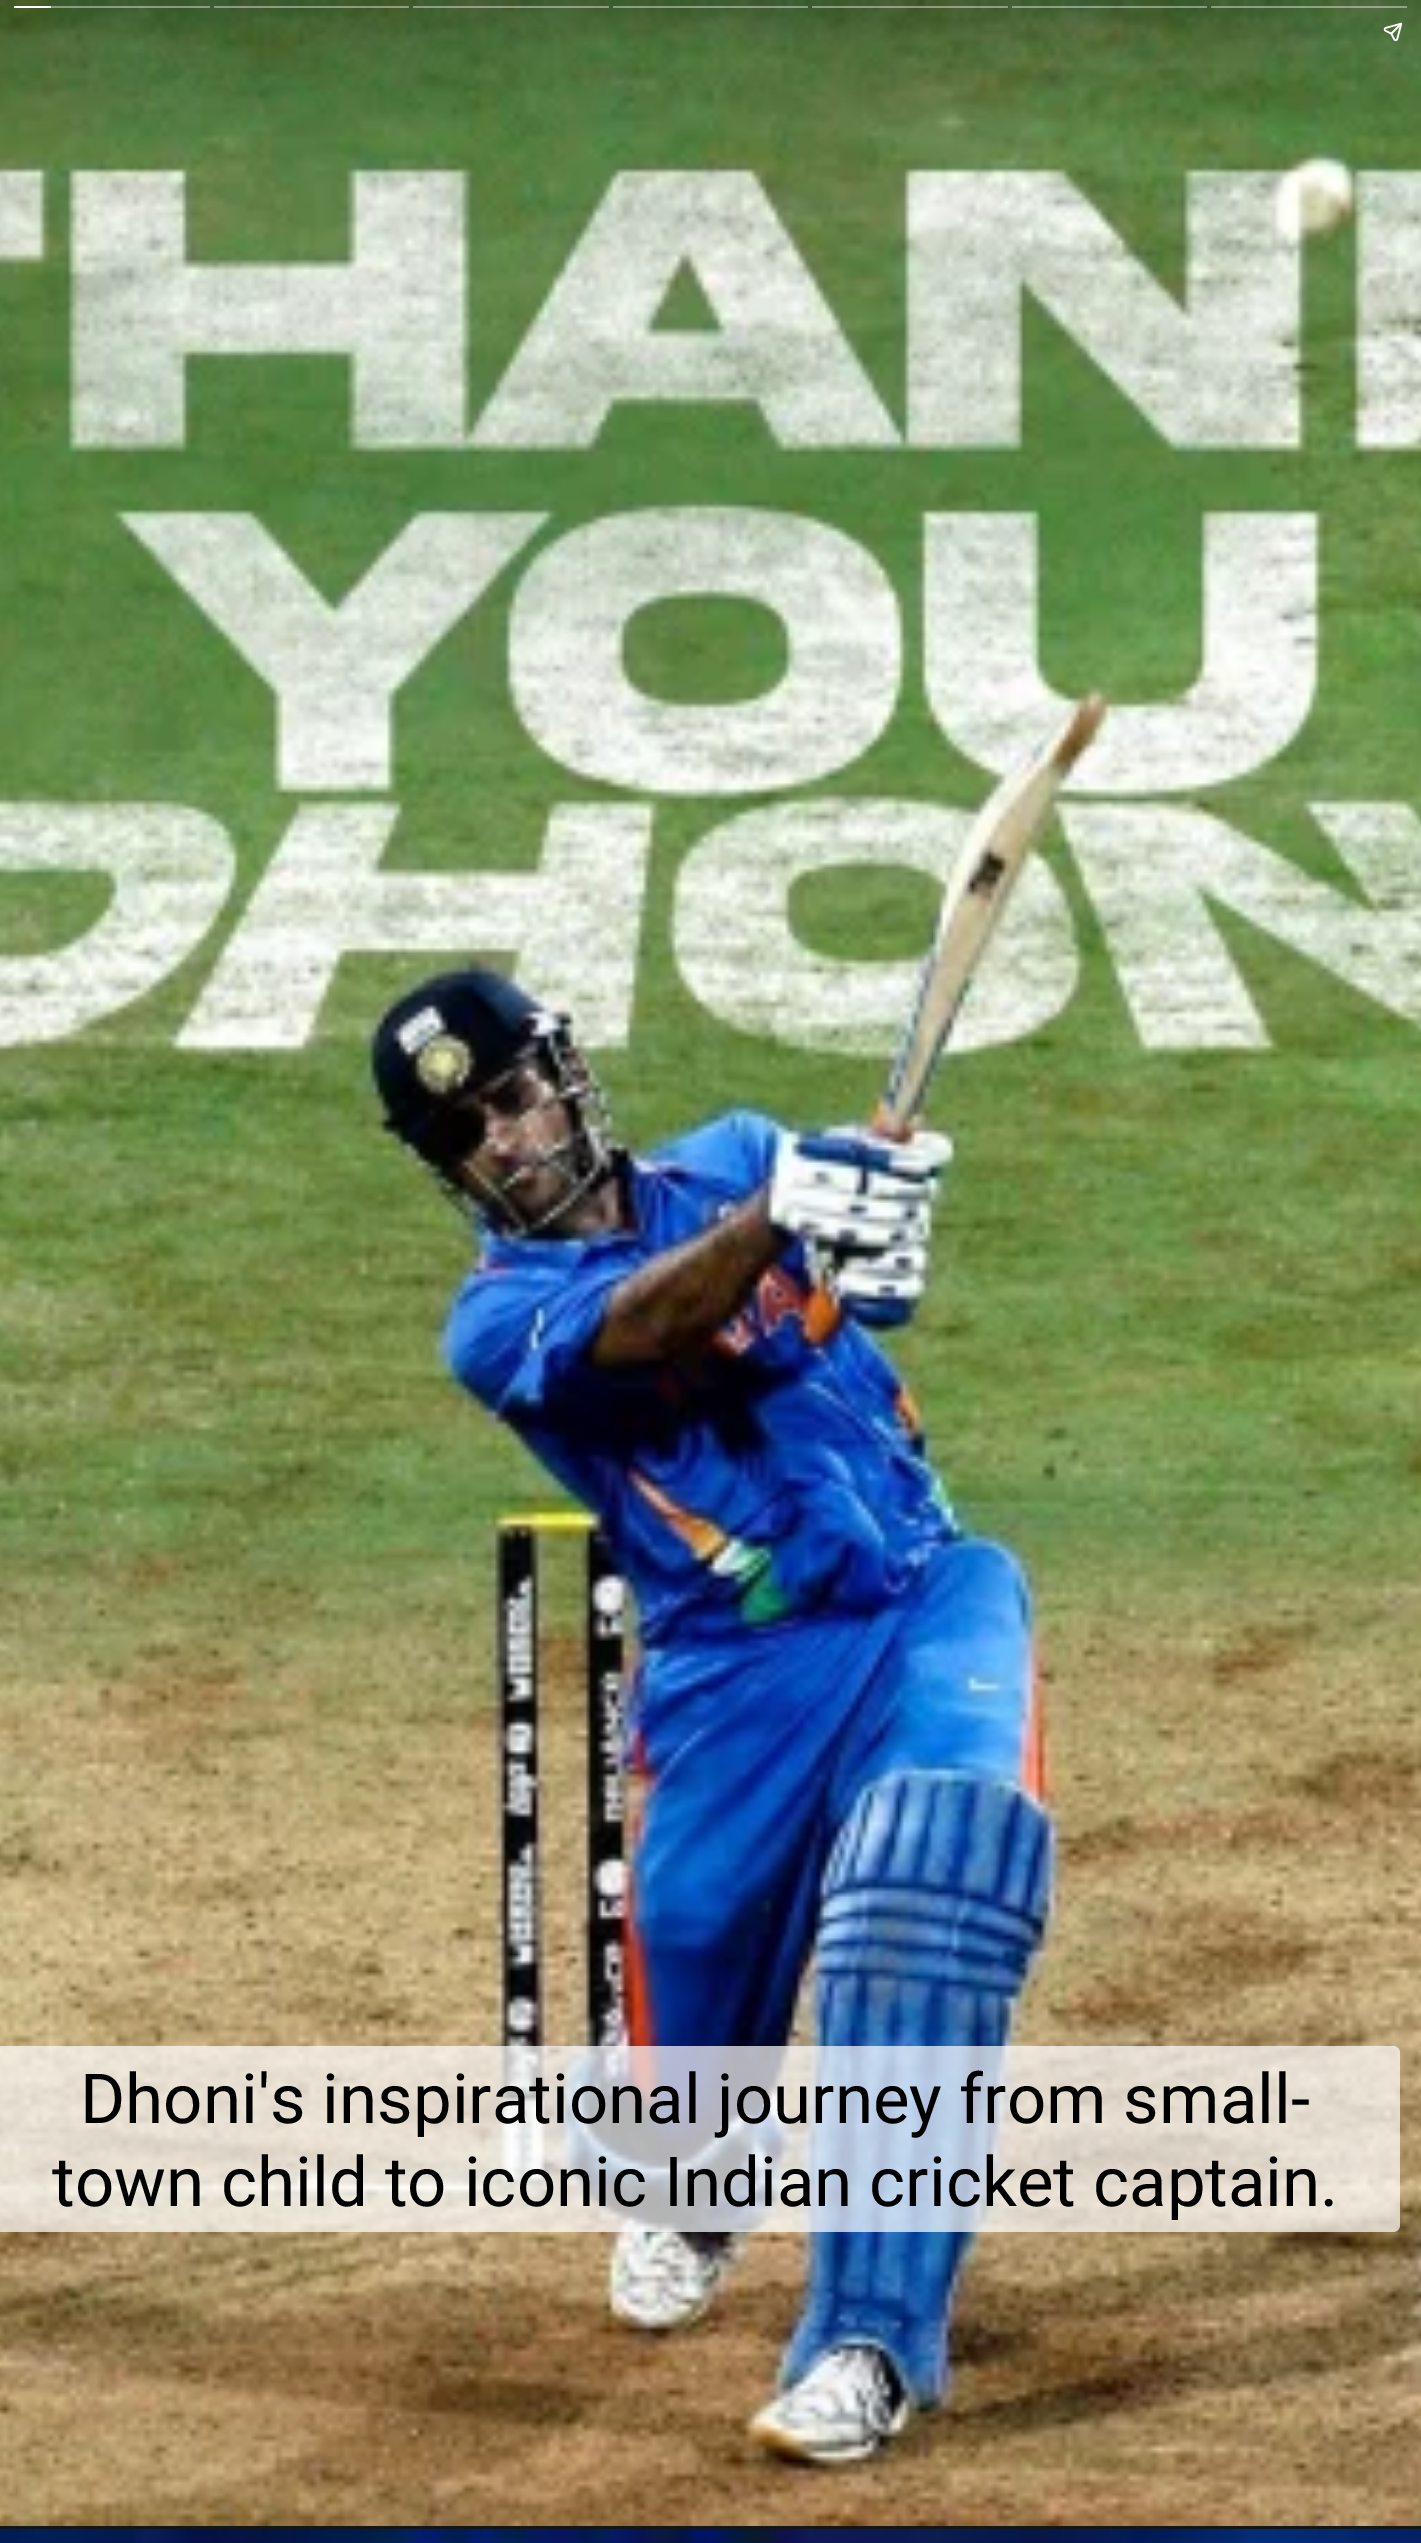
%!PS
<< /PageSize [1421 2543] /PageUsesTransparency true >> setpagedevice
/rgb { dup -16 bitshift 255 div exch dup -8 bitshift 255 and 255 div exch 255 and 255 div setrgbcolor } def
/font { [ exch dup neg 0 0 3 -1 roll 0 0 ] selectfont } def
/text { moveto show } def
/alpha { dup .setfillconstantalpha .setstrokeconstantalpha } def
/roundrect { 5 dict begin { /r /h /w /y /x } { exch def } forall
  x r add y moveto x w add y 2 copy h add r arct x w add y h add x 1 index r arct
  x y h add x y r arct x y 2 copy exch w add exch r arct closepath end } def
/picture { 5 dict begin { /h /w /y /x /name } { exch def } forall
  gsave x y translate w h scale
  w h 8 [w 0 0 h 0 0] name (r) file false 3 colorimage grestore end } def
0 .pushpdf14devicefilter
0 2543 translate 1 -1 scale
4 setmiterlimit
/s1 { /Roboto-Regular 69 font 16#000000 rgb } def
16#131516 rgb
0 0 1421 2543 rectfill
(pic2.raw) 0 0 1421 2526 picture
0.4 alpha
16#FFFFFF rgb
14 6 196 2 1 roundrect fill
1 alpha
15 6 moveto 51 6 lineto 51 8 lineto 15 8 lineto 14.5 8 14 7.5 14 7 curveto 14 6.5 14.5 6 15 6 curveto closepath fill
0.4 alpha
214 6 195 2 1 roundrect fill
413 6 196 2 1 roundrect fill
613 6 195 2 1 roundrect fill
812 6 196 2 1 roundrect fill
1012 6 195 2 1 roundrect fill
1211 6 196 2 1 roundrect fill
1 alpha
(pic1.raw) 1383 22 20 20 picture
0.7 alpha
0 2046 moveto 1393 2046 lineto 1397 2046 1400 2049 1400 2053 curveto 1400 2225 lineto 1400 2229 1397 2232 1393 2232 curveto 0 2232 lineto closepath fill
1 alpha
s1
(Dhoni's inspirational journey from small-) 80 2123 text
(town child to iconic Indian cricket captain.) 52 2206 text
(pic3.raw) 0 2529 1421 14 picture
.poppdf14devicefilter showpage
